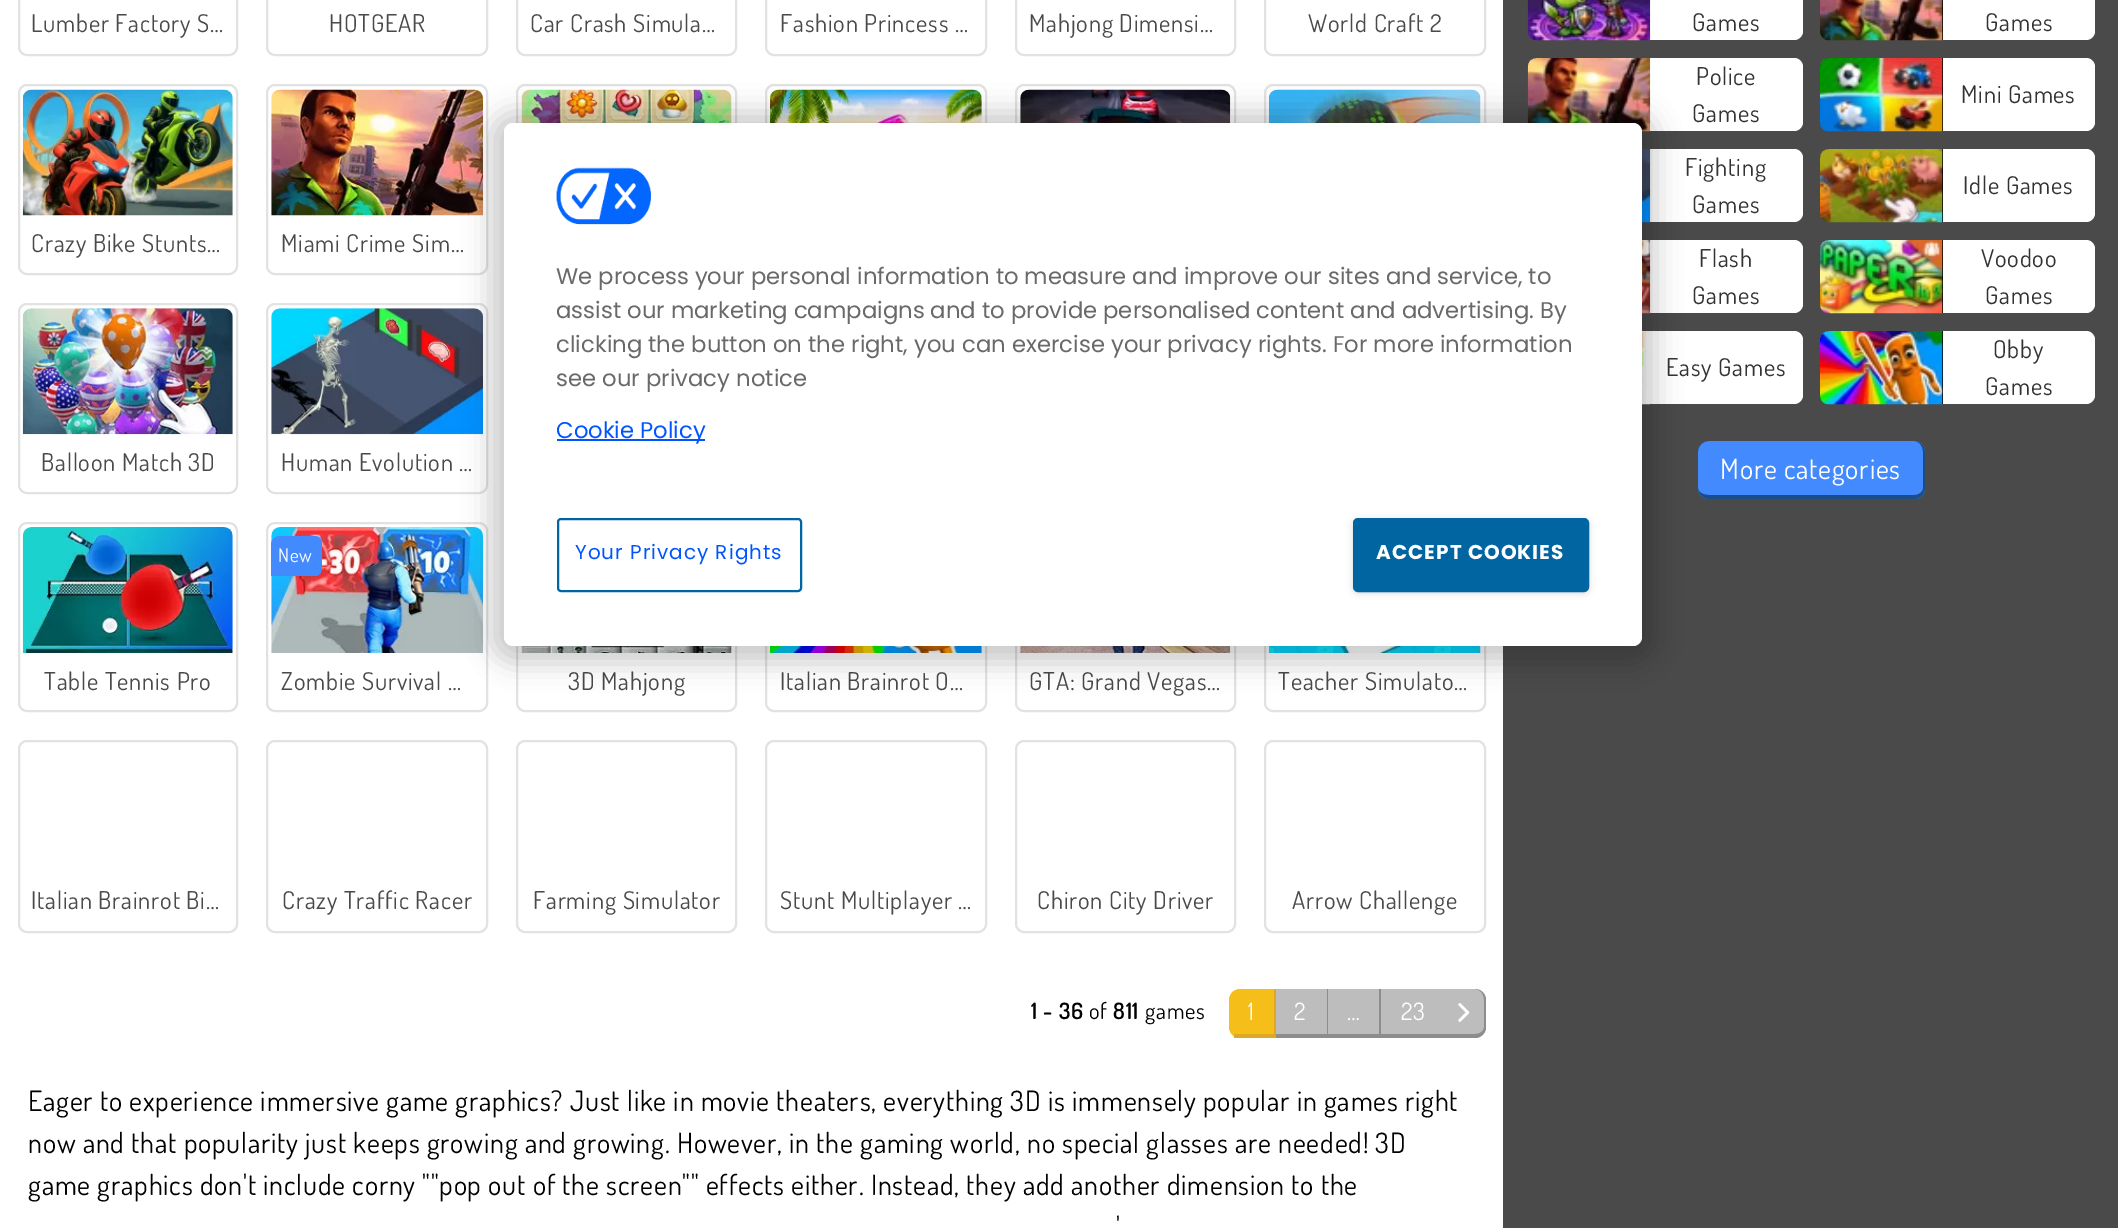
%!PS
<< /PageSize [2118 1228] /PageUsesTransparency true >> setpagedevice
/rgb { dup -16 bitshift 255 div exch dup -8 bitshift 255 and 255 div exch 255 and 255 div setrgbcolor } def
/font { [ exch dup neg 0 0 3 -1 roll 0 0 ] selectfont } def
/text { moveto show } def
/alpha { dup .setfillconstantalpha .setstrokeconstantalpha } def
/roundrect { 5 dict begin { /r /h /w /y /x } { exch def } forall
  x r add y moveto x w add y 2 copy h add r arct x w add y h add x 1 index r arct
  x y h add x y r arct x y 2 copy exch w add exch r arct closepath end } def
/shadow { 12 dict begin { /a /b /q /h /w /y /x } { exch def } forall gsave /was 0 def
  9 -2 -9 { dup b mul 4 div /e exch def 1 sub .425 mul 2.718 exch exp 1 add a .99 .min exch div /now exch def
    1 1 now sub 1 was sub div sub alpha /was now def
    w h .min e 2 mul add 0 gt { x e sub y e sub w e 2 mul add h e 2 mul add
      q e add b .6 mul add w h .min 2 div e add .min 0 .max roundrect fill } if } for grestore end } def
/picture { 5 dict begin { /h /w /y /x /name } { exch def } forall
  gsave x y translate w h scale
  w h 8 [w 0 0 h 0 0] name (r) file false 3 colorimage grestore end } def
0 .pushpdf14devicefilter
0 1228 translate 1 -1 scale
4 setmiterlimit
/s1 { /Poppins-Regular 22.75 font 16#696969 rgb } def
/s2 { /Poppins-Regular 22.75 font 16#0055FF rgb } def
16#FFFFFF rgb
0 0 2118 1228 rectfill
16#E2E2E2 rgb
2 setlinewidth
19 -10 218 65 8 roundrect stroke
/Dosis-Regular 24.5 font
16#4A4A4A rgb
31 32 moveto 0.84 0 (Lumber Factory S…) ashow
16#E2E2E2 rgb
267 -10 220 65 8 roundrect stroke
16#4A4A4A rgb
329 32 moveto 0.84 0 (HOTGEAR) ashow
16#E2E2E2 rgb
517 -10 219 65 8 roundrect stroke
16#4A4A4A rgb
530 32 moveto 0.84 0 (Car Crash Simula…) ashow
16#E2E2E2 rgb
766 -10 220 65 8 roundrect stroke
16#4A4A4A rgb
780 32 moveto 0.84 0 (Fashion Princess …) ashow
16#E2E2E2 rgb
1016 -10 219 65 8 roundrect stroke
16#4A4A4A rgb
1029 32 moveto 0.84 0 (Mahjong Dimensi…) ashow
16#E2E2E2 rgb
1265 -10 220 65 8 roundrect stroke
16#4A4A4A rgb
1308 32 moveto 0.84 0 (World Craft 2) ashow
16#E2E2E2 rgb
19 85 218 189 8 roundrect stroke
(pic1.raw) 22 89 211 127 picture
16#4A4A4A rgb
31 252 moveto 0.84 0 (Crazy Bike Stunts…) ashow
16#E2E2E2 rgb
267 85 220 189 8 roundrect stroke
(pic2.raw) 271 89 212 127 picture
16#4A4A4A rgb
281 252 moveto 0.84 0 (Miami Crime Sim…) ashow
16#E2E2E2 rgb
517 85 219 189 8 roundrect stroke
(pic3.raw) 521 89 211 34 picture
766 85 220 189 8 roundrect stroke
(pic4.raw) 770 89 212 34 picture
1016 85 219 189 8 roundrect stroke
(pic5.raw) 1020 89 211 34 picture
1265 85 220 189 8 roundrect stroke
(pic6.raw) 1268 89 213 34 picture
19 304 218 189 8 roundrect stroke
(pic7.raw) 22 308 211 127 picture
16#4A4A4A rgb
41 471 moveto 0.84 0 (Balloon Match 3D) ashow
16#E2E2E2 rgb
267 304 220 189 8 roundrect stroke
(pic8.raw) 271 308 212 127 picture
16#4A4A4A rgb
281 471 moveto 0.84 0 (Human Evolution …) ashow
16#E2E2E2 rgb
19 523 218 188 8 roundrect stroke
(pic9.raw) 22 527 211 126 picture
16#4A4A4A rgb
44 690 moveto 0.84 0 (Table Tennis Pro) ashow
16#E2E2E2 rgb
267 523 220 188 8 roundrect stroke
(pic10.raw) 271 527 212 126 picture
16#438AFE rgb
280 536 moveto 315 536 lineto 319 536 322 539 322 543 curveto 322 569 lineto 322 573 319 576 315 576 curveto 271 576 lineto 271 545 lineto 271 540 275 536 280 536 curveto closepath fill
/Dosis-Regular 19 font
16#FFFFFF rgb
278 562 moveto 0.84 0 (New) ashow
/Dosis-Regular 24.5 font
16#4A4A4A rgb
281 690 moveto 0.84 0 (Zombie Survival …) ashow
16#E2E2E2 rgb
517 523 219 188 8 roundrect stroke
(pic11.raw) 521 646 211 7 picture
16#4A4A4A rgb
568 690 moveto 0.84 0 (3D Mahjong) ashow
16#E2E2E2 rgb
766 523 220 188 8 roundrect stroke
(pic12.raw) 770 646 212 7 picture
16#4A4A4A rgb
780 690 moveto 0.84 0 (Italian Brainrot O…) ashow
16#E2E2E2 rgb
1016 523 219 188 8 roundrect stroke
(pic13.raw) 1020 646 211 7 picture
16#4A4A4A rgb
1029 690 moveto 0.84 0 (GTA: Grand Vegas…) ashow
16#E2E2E2 rgb
1265 523 220 188 8 roundrect stroke
(pic14.raw) 1268 646 213 7 picture
16#4A4A4A rgb
1278 690 moveto 0.84 0 (Teacher Simulato…) ashow
16#E2E2E2 rgb
19 741 218 191 8 roundrect stroke
16#4A4A4A rgb
31 909 moveto 0.84 0 (Italian Brainrot Bi…) ashow
16#E2E2E2 rgb
267 741 220 191 8 roundrect stroke
16#4A4A4A rgb
282 909 moveto 0.84 0 (Crazy Traffic Racer) ashow
16#E2E2E2 rgb
517 741 219 191 8 roundrect stroke
16#4A4A4A rgb
533 909 moveto 0.84 0 (Farming Simulator) ashow
16#E2E2E2 rgb
766 741 220 191 8 roundrect stroke
16#4A4A4A rgb
780 909 moveto 0.84 0 (Stunt Multiplayer …) ashow
16#E2E2E2 rgb
1016 741 219 191 8 roundrect stroke
16#4A4A4A rgb
1037 909 moveto 0.84 0 (Chiron City Driver) ashow
16#E2E2E2 rgb
1265 741 220 191 8 roundrect stroke
16#4A4A4A rgb
1292 909 moveto 0.84 0 (Arrow Challenge) ashow
/Dosis-SemiBold 22.5 font
16#000000 rgb
1031 1019 moveto 0.84 0 (1 - 36) ashow
/Dosis-Regular 22.5 font
1089 1019 moveto 0.84 0 (of) ashow
/Dosis-SemiBold 22.5 font
1113 1019 moveto 0.84 0 (811) ashow
/Dosis-Regular 22.5 font
1145 1019 moveto 0.84 0 (games) ashow
16#F5BE19 rgb
1240 989 moveto 1276 989 lineto 1276 1038 lineto 1240 1038 lineto 1234 1038 1229 1033 1229 1027 curveto 1229 1000 lineto 1229 994 1234 989 1240 989 curveto closepath fill
16#DEA824 rgb
1274 989 2 49 rectfill
1234 1034 42 4 rectfill
/Dosis-Regular 24 font
16#FFFFFF rgb
1248 1020 moveto 0.84 0 (1) ashow
16#BDBDBD rgb
1276 989 51 45 rectfill
16#8D8D8D rgb
1327 989 1 49 rectfill
1276 1034 52 4 rectfill
16#FFFFFF rgb
1294 1020 moveto 0.84 0 (2) ashow
16#BDBDBD rgb
1328 989 51 45 rectfill
16#8D8D8D rgb
1379 989 2 49 rectfill
1328 1034 119 4 rectfill
16#FFFFFF rgb
1347 1020 moveto 0.84 0 (…) ashow
16#BDBDBD rgb
1381 989 65 45 rectfill
16#FFFFFF rgb
1401 1020 moveto 0.84 0 (23) ashow
16#BDBDBD rgb
1446 989 moveto 1475 989 lineto 1481 989 1486 994 1486 1000 curveto 1486 1027 lineto 1486 1033 1481 1038 1475 1038 curveto 1446 1038 lineto closepath fill
16#8D8D8D rgb
1446 989 moveto 1475 989 lineto 1481 989 1486 994 1486 1000 curveto 1486 1027 lineto 1486 1033 1481 1038 1475 1038 curveto 1446 1038 lineto closepath 1446 989 moveto 1475 989 lineto 1480 989 1484 994 1484 1000 curveto 1484 1027 lineto 1484 1031 1480 1034 1475 1034 curveto 1446 1034 lineto closepath eofill
(pic15.raw) 1458 1003 12 19 picture
16#4A4A4A rgb
1503 0 615 1228 rectfill
16#FFFFFF rgb
1528 -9 275 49 9 roundrect fill
(pic16.raw) 1527 0 124 41 picture
/Dosis-Regular 24.5 font
16#333333 rgb
1692 31 moveto 0.84 0 (Games) ashow
16#FFFFFF rgb
1820 -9 275 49 9 roundrect fill
16#000000 rgb
1829 -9 moveto 1943 -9 lineto 1943 40 lineto 1829 40 lineto 1824 40 1820 36 1820 31 curveto 1820 0 lineto 1820 -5 1824 -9 1829 -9 curveto closepath fill
(pic17.raw) 1820 0 123 41 picture
16#333333 rgb
1985 31 moveto 0.84 0 (Games) ashow
16#FFFFFF rgb
1528 58 275 73 9 roundrect fill
(pic18.raw) 1527 58 124 74 picture
16#333333 rgb
1696 85 moveto 0.84 0 (Police) ashow
1692 122 moveto 0.84 0 (Games) ashow
16#FFFFFF rgb
1820 58 275 73 9 roundrect fill
16#000000 rgb
1829 58 moveto 1943 58 lineto 1943 131 lineto 1829 131 lineto 1824 131 1820 127 1820 122 curveto 1820 67 lineto 1820 62 1824 58 1829 58 curveto closepath fill
(pic19.raw) 1820 58 123 74 picture
16#333333 rgb
1961 103 moveto 0.84 0 (Mini Games) ashow
16#FFFFFF rgb
1528 149 275 73 9 roundrect fill
(pic20.raw) 1642 149 9 74 picture
16#333333 rgb
1685 176 moveto 0.84 0 (Fighting) ashow
1692 213 moveto 0.84 0 (Games) ashow
16#FFFFFF rgb
1820 149 275 73 9 roundrect fill
16#000000 rgb
1829 149 moveto 1943 149 lineto 1943 222 lineto 1829 222 lineto 1824 222 1820 218 1820 213 curveto 1820 158 lineto 1820 153 1824 149 1829 149 curveto closepath fill
(pic21.raw) 1820 149 123 74 picture
16#333333 rgb
1963 194 moveto 0.84 0 (Idle Games) ashow
16#FFFFFF rgb
1528 240 275 73 9 roundrect fill
(pic22.raw) 1642 240 9 74 picture
16#333333 rgb
1699 267 moveto 0.84 0 (Flash) ashow
1692 304 moveto 0.84 0 (Games) ashow
16#FFFFFF rgb
1820 240 275 73 9 roundrect fill
16#000000 rgb
1829 240 moveto 1943 240 lineto 1943 313 lineto 1829 313 lineto 1824 313 1820 309 1820 304 curveto 1820 249 lineto 1820 244 1824 240 1829 240 curveto closepath fill
(pic23.raw) 1820 240 123 74 picture
16#333333 rgb
1981 267 moveto 0.84 0 (Voodoo) ashow
1985 304 moveto 0.84 0 (Games) ashow
16#FFFFFF rgb
1528 331 275 73 9 roundrect fill
(pic24.raw) 1642 331 8 74 picture
16#333333 rgb
1666 376 moveto 0.84 0 (Easy Games) ashow
16#FFFFFF rgb
1820 331 275 73 9 roundrect fill
16#000000 rgb
1829 331 moveto 1943 331 lineto 1943 404 lineto 1829 404 lineto 1824 404 1820 400 1820 395 curveto 1820 340 lineto 1820 335 1824 331 1829 331 curveto closepath fill
(pic25.raw) 1820 331 123 74 picture
16#333333 rgb
1993 358 moveto 0.84 0 (Obby) ashow
1985 395 moveto 0.84 0 (Games) ashow
16#438AFE rgb
1698 441 227 58 11 roundrect fill
16#1B4D89 rgb
1709 441 moveto 1914 441 lineto 1920 441 1925 446 1925 452 curveto 1925 488 lineto 1925 494 1920 499 1914 499 curveto 1709 499 lineto 1703 499 1698 494 1698 488 curveto 1698 452 lineto 1698 446 1703 441 1709 441 curveto closepath 1709 441 moveto 1914 441 lineto 1919 441 1923 446 1923 452 curveto 1923 488 lineto 1923 492 1919 495 1914 495 curveto 1709 495 lineto 1703 495 1698 492 1698 488 curveto 1698 452 lineto 1698 446 1703 441 1709 441 curveto closepath eofill
/Dosis-Regular 28 font
16#FFFFFF rgb
1720 479 moveto 0.84 0 (More categories) ashow
16#000000 rgb
28 1111 moveto 0.84 0 (Eager to experience immersive game graphics? Just like in movie theaters, everything 3D is immensely popular in games right) ashow
28 1153 moveto 0.84 0 (now and that popularity just keeps growing and growing. However, in the gaming world, no special glasses are needed! 3D) ashow
28 1195 moveto 0.84 0 (game graphics don't include corny ""pop out of the screen"" effects either. Instead, they add another dimension to the) ashow
1116 1237 moveto 0.84 0 (') ashow
490 112 1166 551 23 13 0.2 shadow
16#FFFFFF rgb
504 123 1138 523 9 roundrect fill
(pic26.raw) 556 167 95 58 picture
s1
(We process your personal information to measure and improve our sites and service, to) 556 284 text
(assist our marketing campaigns and to provide personalised content and advertising. By) 556 318 text
(clicking the button on the right, you can exercise your privacy rights. For more information) 556 352 text
(see our privacy notice) 556 386 text
16#0055FF rgb
557 439 148 2 rectfill
(Cookie Policy) 556 438 text
16#0065A0 rgb
558 519 243 72 3 roundrect stroke
/Poppins-Regular 20 font
16#0055FF rgb
575 559 moveto 1 0 (Your Privacy Rights) ashow
16#000000 rgb
1353 520 236 73 5 3.5 0.16 shadow
16#0065A0 rgb
1354 519 234 72 4 roundrect gsave fill grestore
stroke
/Poppins-Bold 20 font
16#FFFFFF rgb
1376 559 moveto 1 0 (ACCEPT COOKIES) ashow
.poppdf14devicefilter showpage
